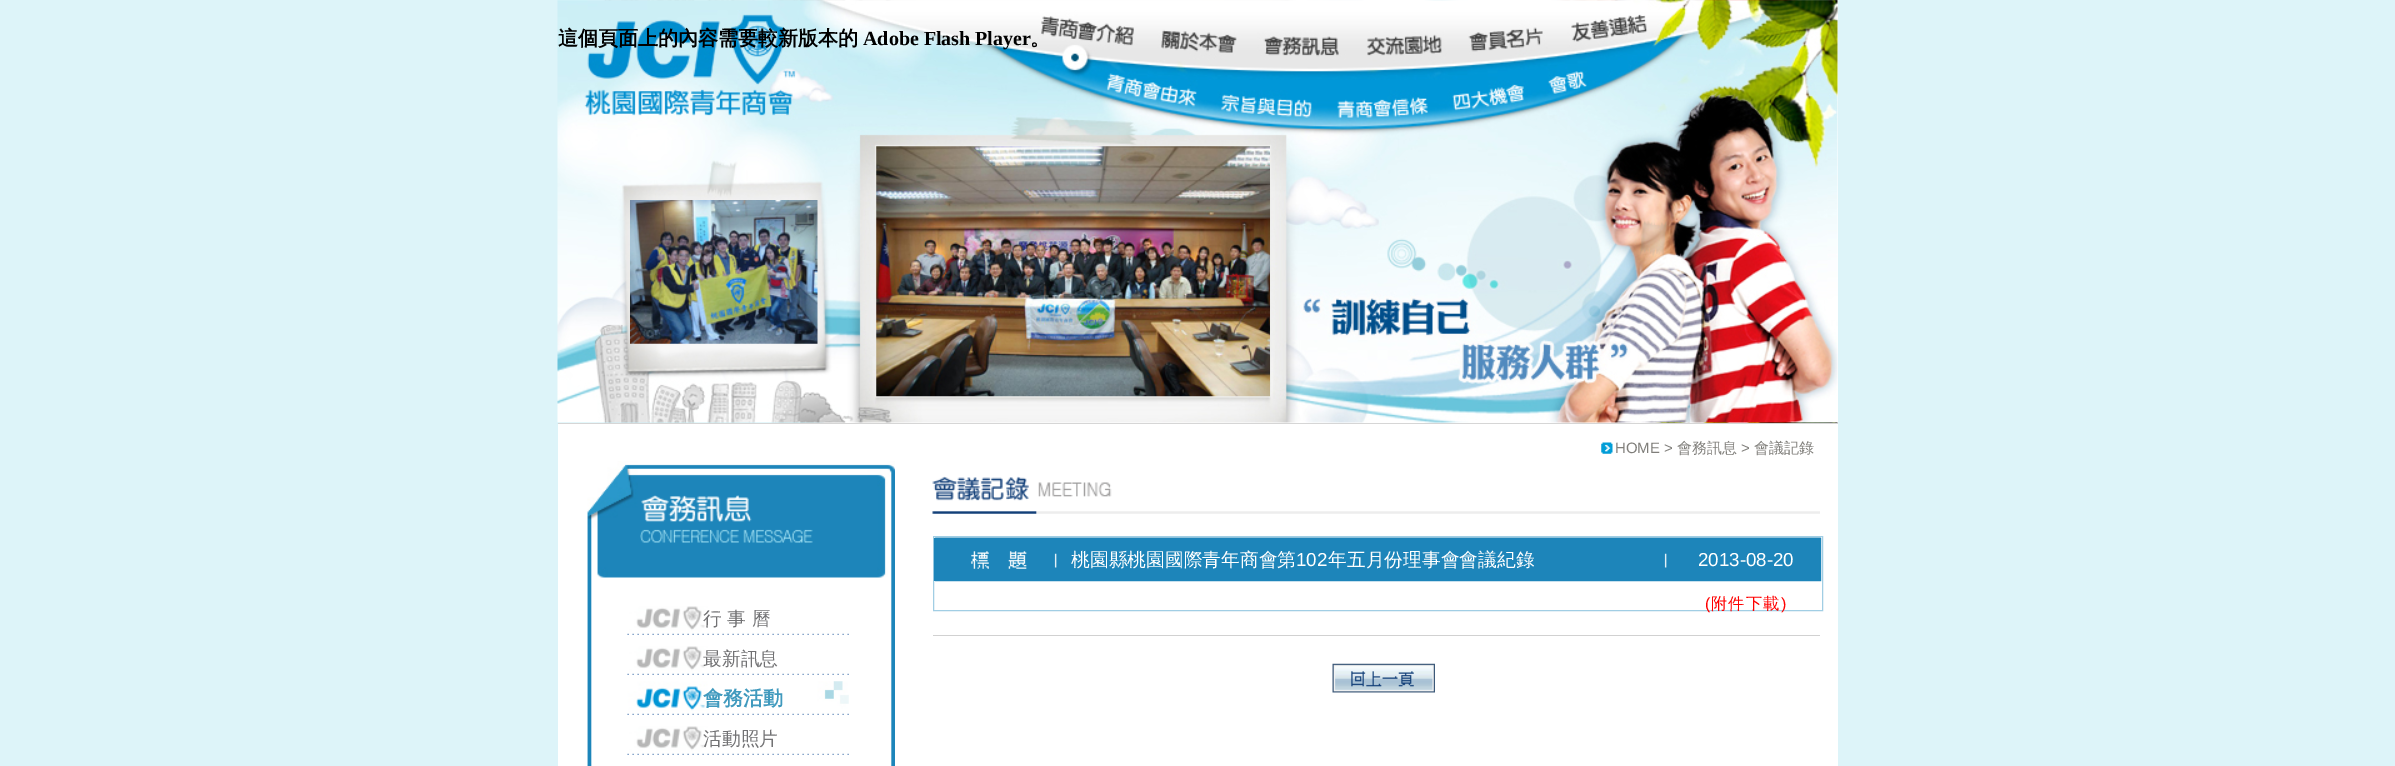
%!PS
<< /PageSize [2395 766] >> setpagedevice
/rgb { dup -16 bitshift 255 div exch dup -8 bitshift 255 and 255 div exch 255 and 255 div setrgbcolor } def
/font { [ exch dup neg 0 0 3 -1 roll 0 0 ] selectfont } def
/text { moveto show } def
/picture { 5 dict begin { /h /w /y /x /name } { exch def } forall
  gsave x y translate w h scale
  w h 8 [w 0 0 h 0 0] name (r) file false 3 colorimage grestore end } def
0 766 translate 1 -1 scale
4 setmiterlimit
/s1 { /WenQuanYiZenHei-Bold 20 font 16#000000 rgb } def
/s2 { /LiberationSerif-Bold 20 font 16#000000 rgb } def
/s3 { /LiberationSans-Regular 15 font 16#7F7E7A rgb } def
/s4 { /WenQuanYiZenHei-Medium 15 font 16#7F7E7A rgb } def
/s5 { /WenQuanYiZenHei-Medium 18.75 font 16#FFFFFF rgb } def
/s6 { /LiberationSans-Regular 18.75 font 16#FFFFFF rgb } def
/s7 { /WenQuanYiZenHei-Medium 18.75 font 16#727274 rgb } def
/s8 { /WenQuanYiZenHei-Bold 20 font 16#409ABE rgb } def
16#DDF4F9 rgb
0 0 2395 766 rectfill
16#FFFFFF rgb
558 0 1280 766 rectfill
(pic1.raw) 557 0 1281 424 picture
16#D6D6D6 rgb
558 423 1280 1 rectfill
s1
(這個頁面上的內容需要較新版本的) 558 45 text
s2
(Adobe Flash Player) 863 45 text
s1
(。) 1030 45 text
(pic2.raw) 630 200 188 144 picture
(pic3.raw) 876 146 394 251 picture
(pic4.raw) 1601 442 12 12 picture
s3
(HOME >) 1615 453 text
s4
(會務訊息) 1677 453 text
s3
(>) 1741 453 text
s4
(會議記錄) 1754 453 text
(pic5.raw) 932 476 888 38 picture
16#D1D1D1 rgb
933 635 887 1 rectfill
16#A1CEE4 rgb
933.5 536.5 889 74 rectstroke
16#1D85BA rgb
934 538 887 43 rectfill
(pic6.raw) 933 537 889 45 picture
s5
(桃園縣桃園國際青年商會第) 1071 566 text
s6
(102) 1296 566 text
s5
(年五月份理事會會議紀錄) 1328 566 text
s6
(2013-08-20) 1698 566 text
/LiberationSans-Regular 16.25 font
16#FF0000 rgb
1705 609 moveto 1 0 (\() ashow
/WenQuanYiZenHei-Medium 16.25 font
1711 609 moveto 1 0 (附件下載) ashow
/LiberationSans-Regular 16.25 font
1781 609 moveto 1 0 (\)) ashow
(pic7.raw) 1332 663 103 30 picture
(pic8.raw) 587 461 308 305 picture
(pic9.raw) 640 495 173 48 picture
(pic10.raw) 627 606 222 29 picture
s7
(行 事 曆) 703 625 text
(pic10.raw) 627 646 222 29 picture
(最新訊息) 703 665 text
(pic11.raw) 627 681 222 34 picture
s8
(會務活動) 703 705 text
(pic10.raw) 627 726 222 29 picture
s7
(活動照片) 703 745 text
showpage
